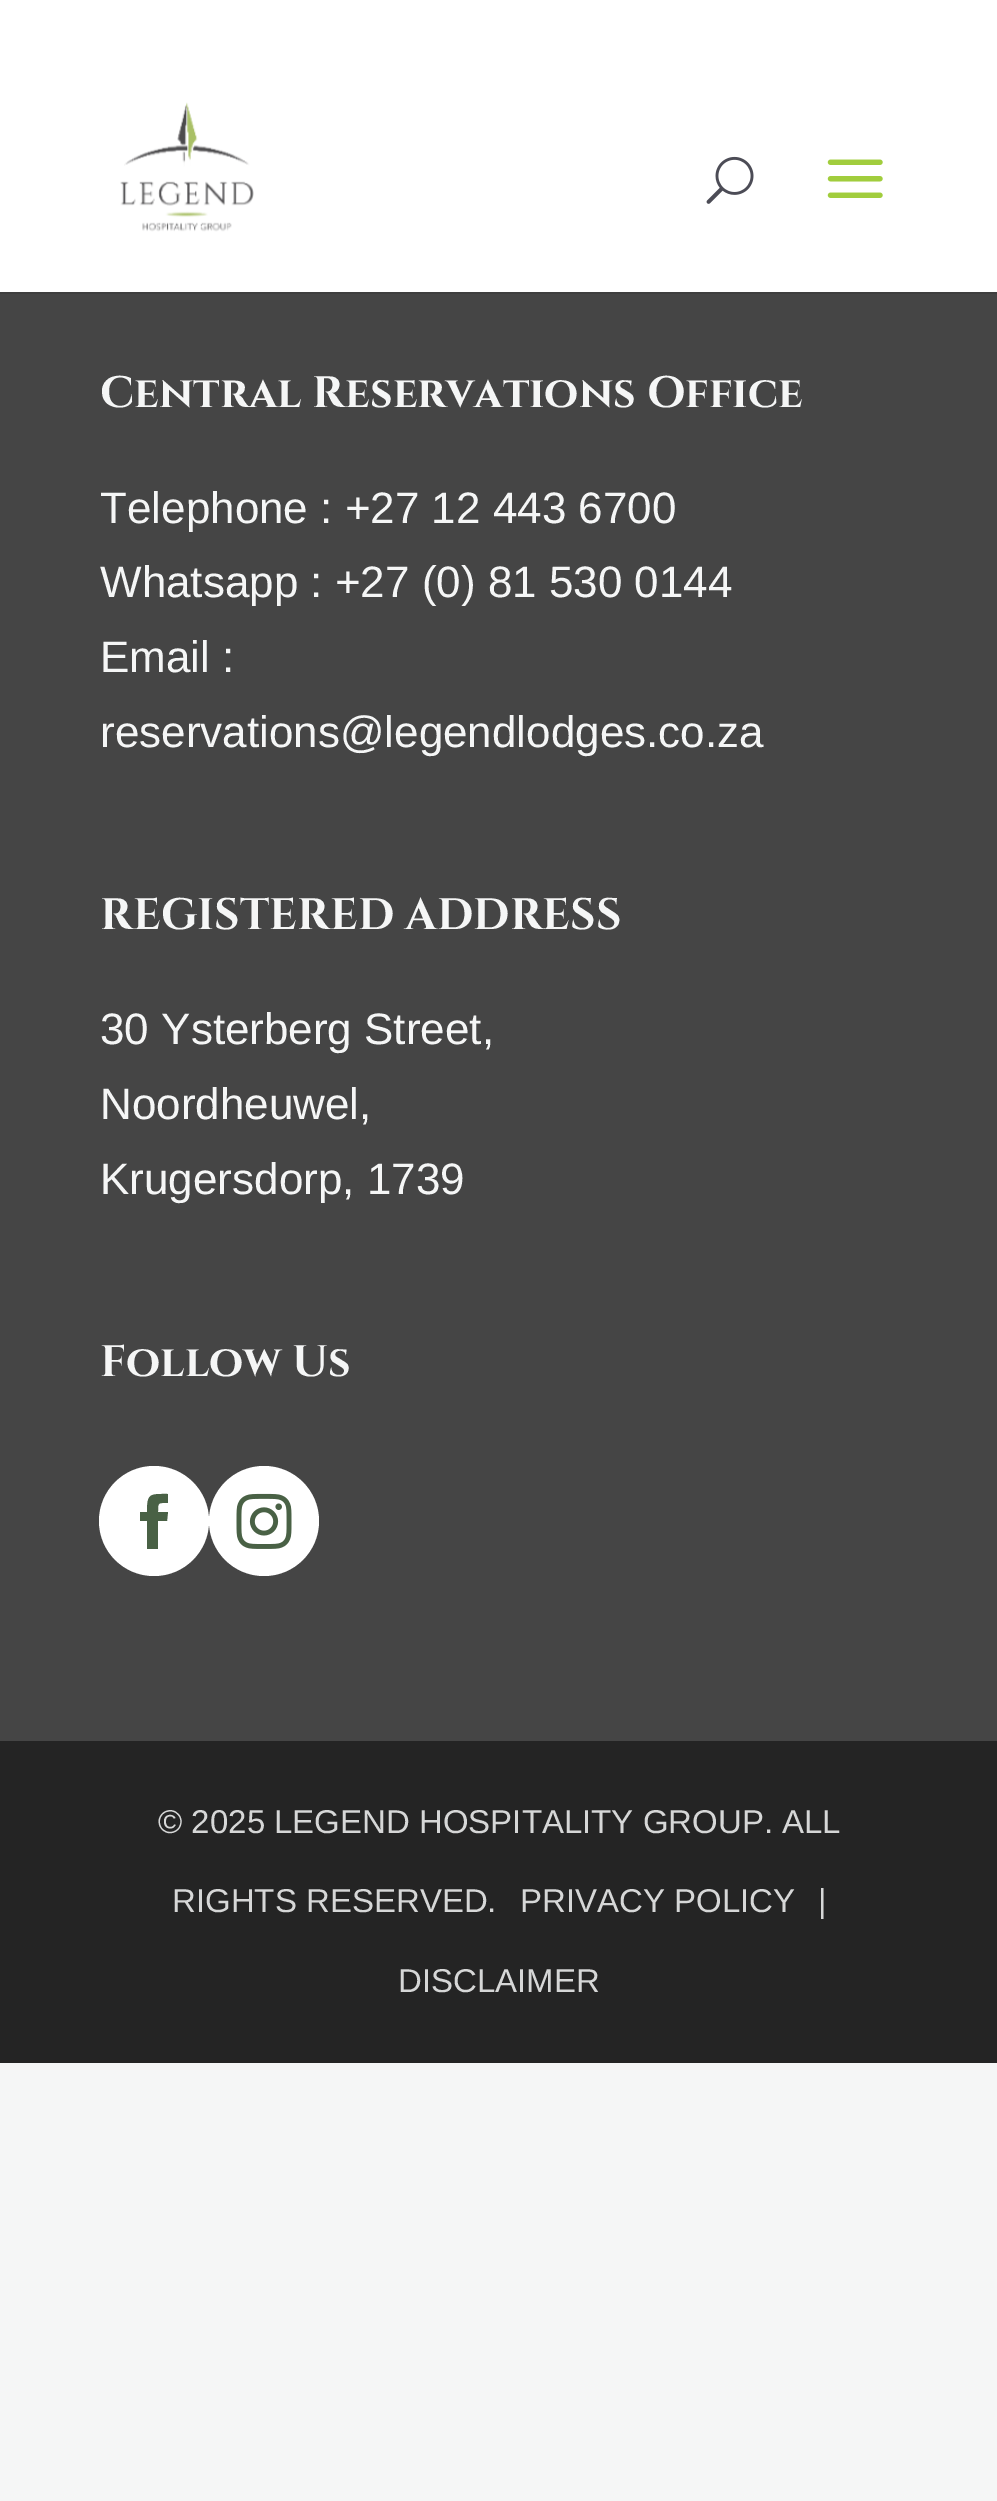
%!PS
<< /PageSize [997 2501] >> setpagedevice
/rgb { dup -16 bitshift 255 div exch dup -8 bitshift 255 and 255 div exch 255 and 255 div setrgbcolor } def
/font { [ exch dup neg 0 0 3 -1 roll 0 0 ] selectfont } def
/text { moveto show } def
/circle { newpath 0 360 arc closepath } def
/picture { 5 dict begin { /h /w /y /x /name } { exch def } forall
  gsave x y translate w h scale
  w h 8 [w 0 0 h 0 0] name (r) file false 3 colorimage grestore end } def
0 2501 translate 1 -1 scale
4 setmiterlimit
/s1 { /Cinzel-Bold 44 font 16#F5F6F6 rgb } def
/s2 { /LiberationSans-Regular 44 font 16#F5F6F6 rgb } def
/s3 { /LiberationSans-Regular 33 font 16#D6D7D7 rgb } def
16#F5F6F6 rgb
0 0 997 2501 rectfill
16#3E3E3E rgb
0 292 997 2 rectfill
16#FFFFFF rgb
0 0 997 292 rectfill
(pic1.raw) 120 102 134 130 picture
(pic2.raw) 706 156 48 48 picture
(pic3.raw) 827 159 56 39 picture
16#454545 rgb
0 294 997 1447 rectfill
s1
(Central Reservations Office) 100 407 text
s2
(Telephone : +27 12 443 6700) 100 523 text
(Whatsapp : +27 \(0\) 81 530 0144) 100 597 text
(Email :) 100 672 text
(reservations@legendlodges.co.za) 100 747 text
s1
(REGISTERED ADDRESS) 100 929 text
s2
(30 Ysterberg Street,) 100 1044 text
(Noordheuwel,) 100 1119 text
(Krugersdorp, 1739) 100 1194 text
s1
(Follow Us) 100 1376 text
16#FFFFFF rgb
154 1521 55 circle fill
16#496145 rgb
147 1549 moveto 158 1549 lineto 158 1521 lineto 167 1521 lineto 168 1512 lineto 158 1512 lineto 158 1502 158 1503 168 1503 curveto 168 1494 lineto 150 1494 147 1493 147 1512 curveto 140 1512 lineto 140 1521 lineto 147 1521 lineto closepath fill
16#FFFFFF rgb
264 1521 55 circle fill
(pic4.raw) 236 1493 56 56 picture
16#242424 rgb
0 1741 997 322 rectfill
s3
(© 2025 LEGEND HOSPITALITY GROUP. ALL) 158 1833 text
(RIGHTS RESERVED.) 172 1912 text
(PRIVACY POLICY) 520 1912 text
(|) 818 1912 text
(DISCLAIMER) 398 1992 text
showpage
